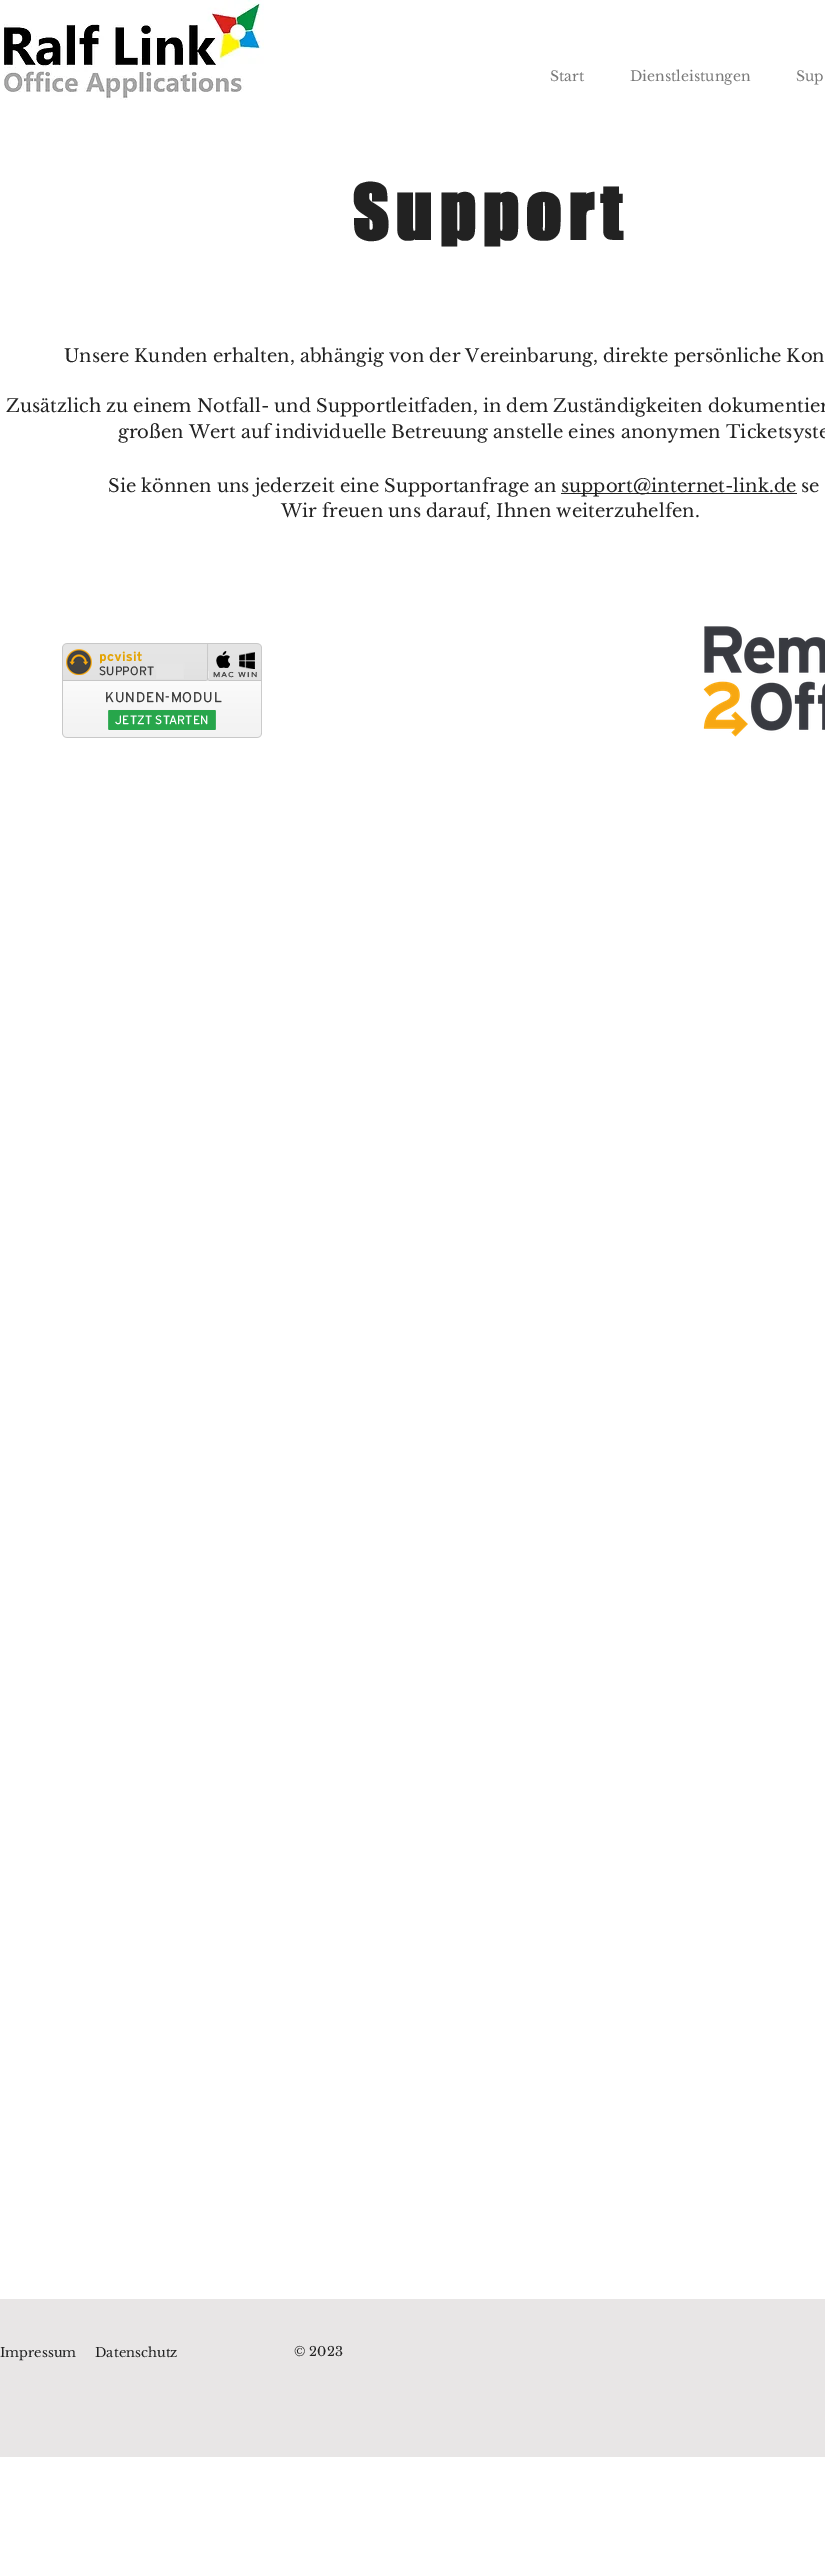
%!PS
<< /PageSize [825 2555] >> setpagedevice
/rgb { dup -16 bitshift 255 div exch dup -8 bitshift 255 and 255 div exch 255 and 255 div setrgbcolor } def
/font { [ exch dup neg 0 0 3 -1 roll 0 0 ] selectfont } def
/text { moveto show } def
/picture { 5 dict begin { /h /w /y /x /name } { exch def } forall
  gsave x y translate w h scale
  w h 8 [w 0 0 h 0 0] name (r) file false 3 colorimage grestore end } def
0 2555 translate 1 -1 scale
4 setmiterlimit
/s1 { /LibreBaskerville-Regular 14 font 16#7A7A7A rgb } def
/s2 { /LibreBaskerville-Regular 18 font 16#222222 rgb } def
/s3 { /LibreBaskerville-Regular 13 font 16#222222 rgb } def
16#FFFFFF rgb
0 0 825 2555 rectfill
(pic1.raw) 4 0 260 100 picture
s1
(Start) 550 81 text
(Dienstleistungen) 630 81 text
(Sup) 796 81 text
/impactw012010-Bold 70 font
16#222222 rgb
352 240 moveto 7 0 (Support) ashow
s2
(Unsere Kunden erhalten, abhängig von der Vereinbarung, direkte persönliche Kon) 64 362 text
(Zusätzlich zu einem Notfall- und Supportleitfaden, in dem Zuständigkeiten dokumentier) 6 412 text
(großen Wert auf individuelle Betreuung anstelle eines anonymen Ticketsyste) 118 438 text
(Sie können uns jederzeit eine Supportanfrage an) 108 492 text
561 493 236 1 rectfill
(support@internet-link.de se) 561 492 text
(Wir freuen uns darauf, Ihnen weiterzuhelfen.) 281 517 text
(pic2.raw) 62 643 200 95 picture
(pic3.raw) 703 626 122 111 picture
16#E8E6E6 rgb
0 2299 825 158 rectfill
s3
(Impressum) 0 2357 text
(Datenschutz) 95 2357 text
(© 2023) 294 2356 text
showpage
